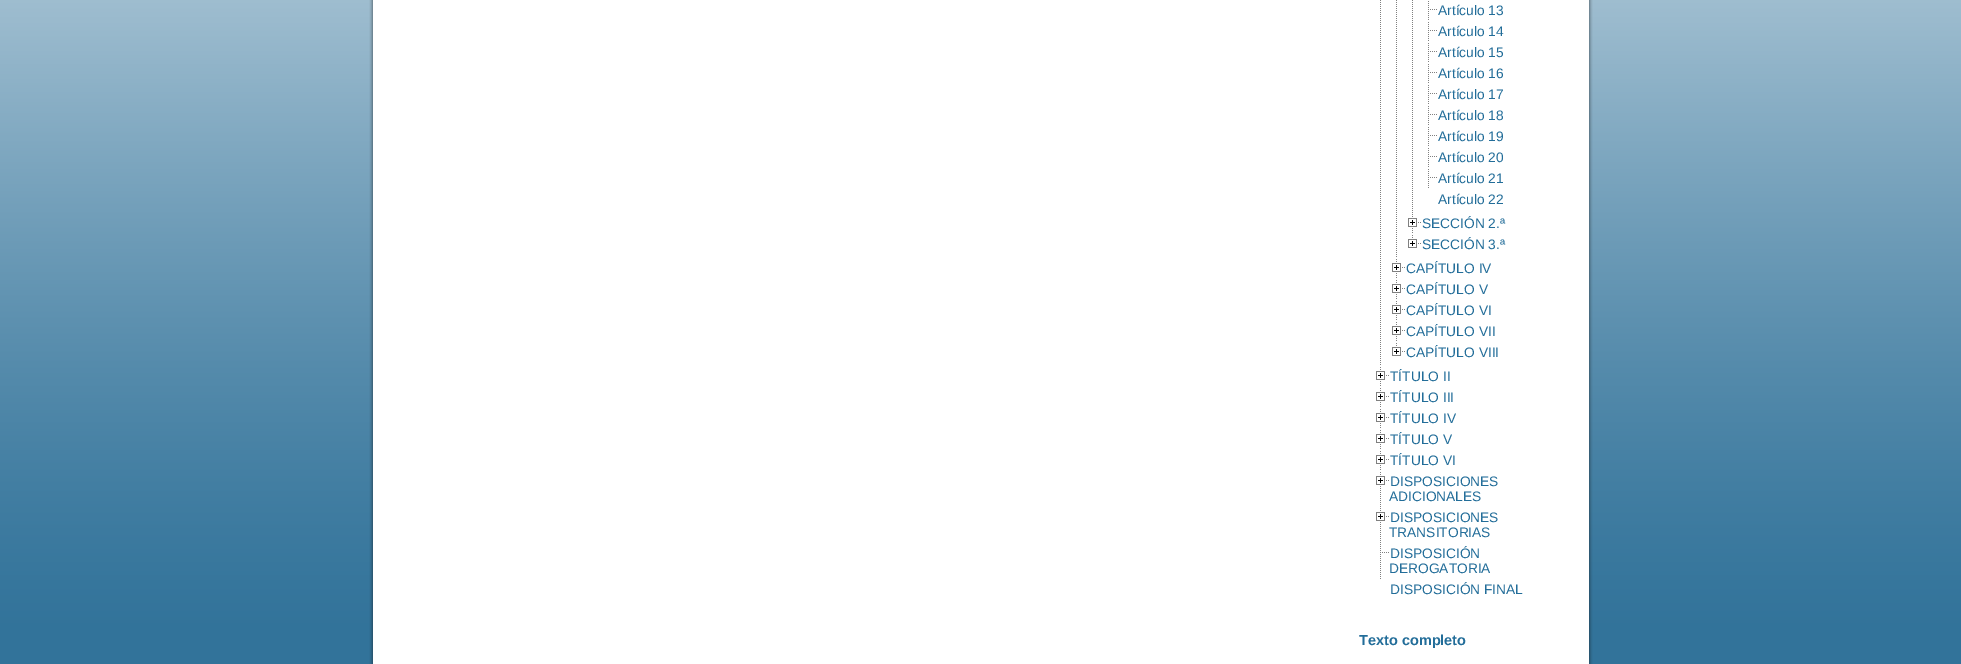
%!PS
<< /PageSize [1961 664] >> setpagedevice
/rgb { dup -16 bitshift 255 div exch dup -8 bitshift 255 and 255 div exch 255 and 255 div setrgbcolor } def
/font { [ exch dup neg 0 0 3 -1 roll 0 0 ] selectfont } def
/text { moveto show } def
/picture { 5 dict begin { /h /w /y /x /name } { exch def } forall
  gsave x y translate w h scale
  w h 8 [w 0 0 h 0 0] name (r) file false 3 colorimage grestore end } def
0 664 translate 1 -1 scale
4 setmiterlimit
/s1 { /LiberationSans-Regular 13.75 font 16#226D99 rgb } def
/s2 { /LiberationSans-Bold 14.5 font 16#226D99 rgb } def
16#FFFFFF rgb
0 0 1961 664 rectfill
(pic1.raw) 0 0 1961 664 picture
373 0 1216 664 rectfill
(pic2.raw) 369 0 4 664 picture
(pic3.raw) 1380 0 1 365 picture
(pic4.raw) 1396 0 1 257 picture
(pic5.raw) 1412 0 1 213 picture
(pic6.raw) 1428 1 9 19 picture
s1
(Artículo 13) 1438 15 text
(pic6.raw) 1428 22 9 19 picture
(Artículo 14) 1438 36 text
(pic6.raw) 1428 43 9 19 picture
(Artículo 15) 1438 57 text
(pic6.raw) 1428 64 9 19 picture
(Artículo 16) 1438 78 text
(pic6.raw) 1428 85 9 19 picture
(Artículo 17) 1438 99 text
(pic6.raw) 1428 106 9 19 picture
(Artículo 18) 1438 120 text
(pic6.raw) 1428 127 9 19 picture
(Artículo 19) 1438 141 text
(pic6.raw) 1428 148 9 19 picture
(Artículo 20) 1438 162 text
(pic6.raw) 1428 169 9 19 picture
(Artículo 21) 1438 183 text
(Artículo 22) 1438 204 text
(pic7.raw) 1412 214 1 19 picture
(pic8.raw) 1408 218 13 9 picture
(SECCIÓN 2.ª) 1422 228 text
(pic9.raw) 1408 235 13 13 picture
(SECCIÓN 3.ª) 1422 249 text
(pic7.raw) 1396 259 1 19 picture
(pic8.raw) 1392 263 13 9 picture
(CAPÍTULO IV) 1406 273 text
(pic7.raw) 1396 280 1 19 picture
(pic8.raw) 1392 284 13 9 picture
(CAPÍTULO V) 1406 294 text
(pic7.raw) 1396 301 1 19 picture
(pic8.raw) 1392 305 13 9 picture
(CAPÍTULO VI) 1406 315 text
(pic7.raw) 1396 322 1 19 picture
(pic8.raw) 1392 326 13 9 picture
(CAPÍTULO VII) 1406 336 text
(pic9.raw) 1392 343 13 13 picture
(CAPÍTULO VIII) 1406 357 text
(pic7.raw) 1380 367 1 19 picture
(pic8.raw) 1376 371 13 9 picture
(TÍTULO II) 1390 381 text
(pic7.raw) 1380 388 1 19 picture
(pic8.raw) 1376 392 13 9 picture
(TÍTULO III) 1390 402 text
(pic7.raw) 1380 409 1 19 picture
(pic8.raw) 1376 413 13 9 picture
(TÍTULO IV) 1390 423 text
(pic7.raw) 1380 430 1 19 picture
(pic8.raw) 1376 434 13 9 picture
(TÍTULO V) 1390 444 text
(pic7.raw) 1380 451 1 19 picture
(pic8.raw) 1376 455 13 9 picture
(TÍTULO VI) 1390 465 text
(pic10.raw) 1380 472 1 35 picture
(pic8.raw) 1376 476 13 9 picture
(DISPOSICIONES) 1390 486 text
(ADICIONALES) 1389 501 text
(pic10.raw) 1380 508 1 35 picture
(pic8.raw) 1376 512 13 9 picture
(DISPOSICIONES) 1390 522 text
(TRANSITORIAS) 1389 537 text
(pic11.raw) 1380 544 9 35 picture
(DISPOSICIÓN) 1390 558 text
(DEROGATORIA) 1389 573 text
(DISPOSICIÓN FINAL) 1390 594 text
s2
(Texto completo) 1359 645 text
(pic12.raw) 1589 0 4 664 picture
showpage
